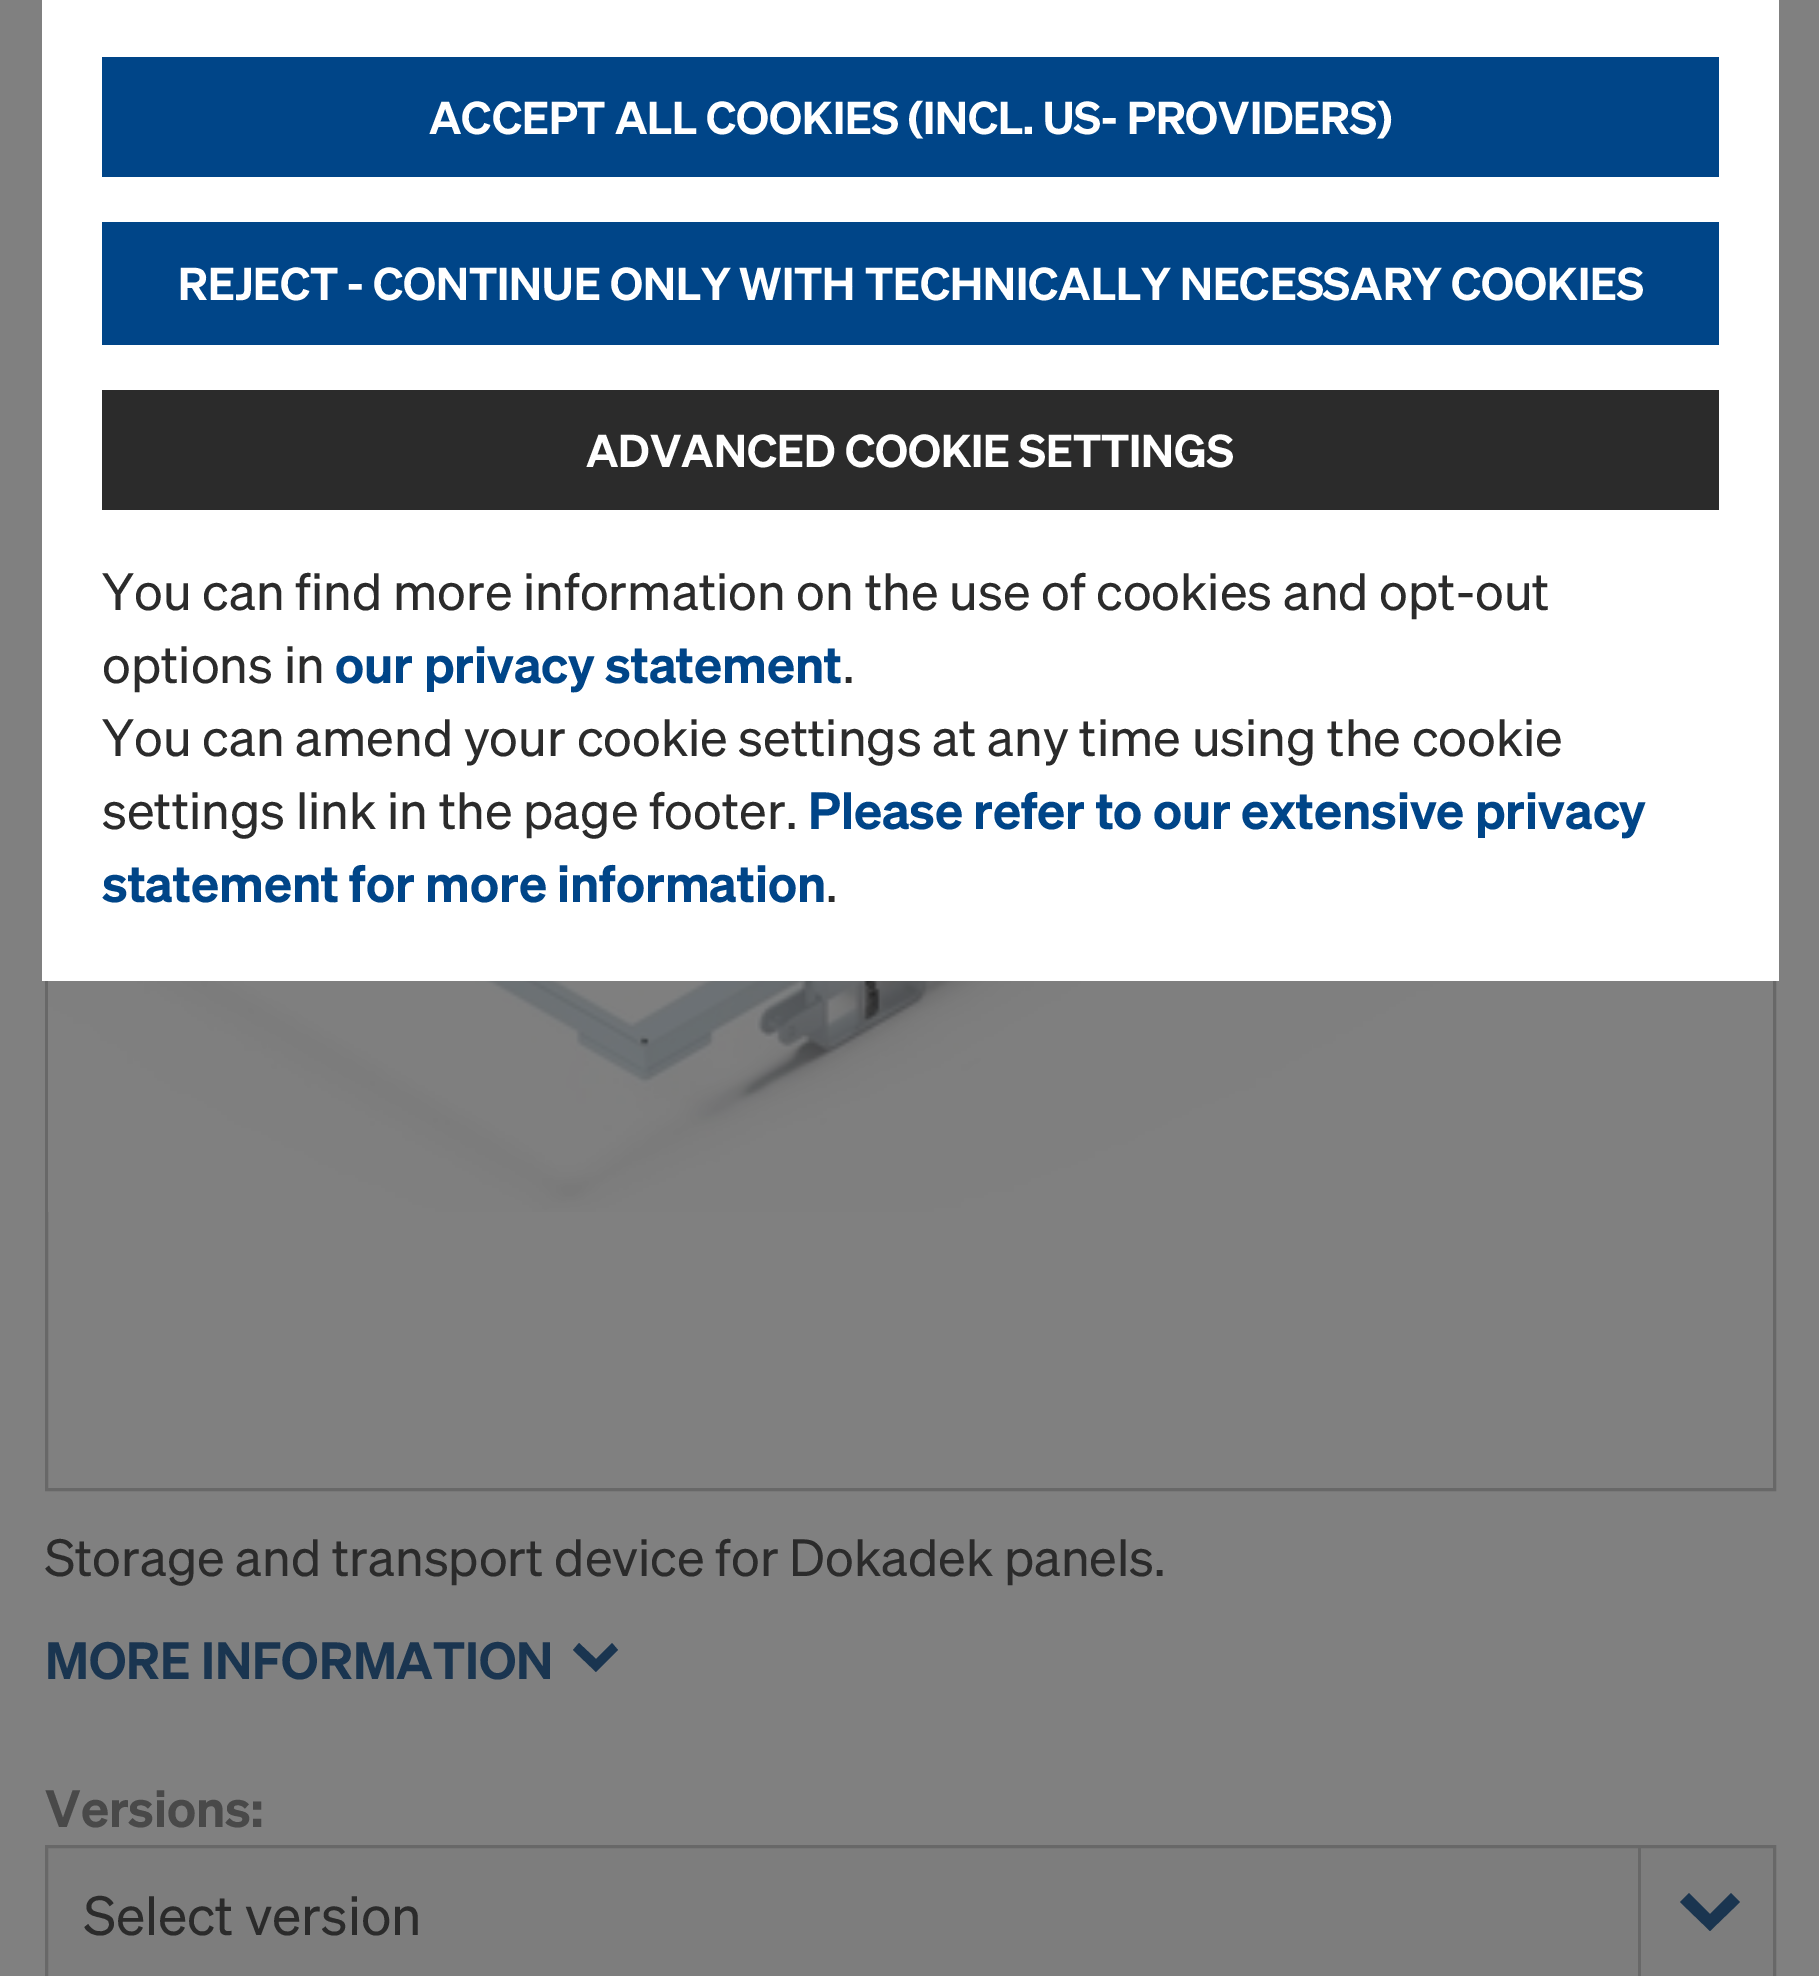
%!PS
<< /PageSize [1819 1976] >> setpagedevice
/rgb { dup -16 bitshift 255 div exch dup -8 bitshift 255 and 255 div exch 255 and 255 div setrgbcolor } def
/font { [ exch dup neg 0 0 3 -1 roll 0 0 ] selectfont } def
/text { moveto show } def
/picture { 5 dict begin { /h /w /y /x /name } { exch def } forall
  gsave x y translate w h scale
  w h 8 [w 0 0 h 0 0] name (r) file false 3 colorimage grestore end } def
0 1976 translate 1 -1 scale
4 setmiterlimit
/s1 { /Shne-SemiBold 45 font 16#FFFFFF rgb } def
/s2 { /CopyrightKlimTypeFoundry-Regular 51 font 16#2B2B2B rgb } def
/s3 { /Shne-SemiBold 51 font 16#004588 rgb } def
/s4 { /Shne-SemiBold 51 font 16#1A3550 rgb } def
/s5 { /Shne-SemiBold 51 font 16#494949 rgb } def
/s6 { /CopyrightKlimTypeFoundry-Regular 54 font 16#2B2B2B rgb } def
16#808080 rgb
0 0 1819 1976 rectfill
16#686868 rgb
3 setlinewidth
46.5 -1.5 1728 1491 rectstroke
16#FFFFFF rgb
42 0 1737 981 rectfill
16#004588 rgb
102 57 1617 120 rectfill
s1
(ACCEPT ALL COOKIES \(INCL. US- PROVIDERS\)) 429 134 text
16#004588 rgb
102 222 1617 123 rectfill
s1
(REJECT - CONTINUE ONLY WITH TECHNICALLY NECESSARY COOKIES) 178 300 text
16#2B2B2B rgb
102 390 1617 120 rectfill
s1
(ADVANCED COOKIE SETTINGS) 586 467 text
s2
(You can find more information on the use of cookies and opt-out) 102 610 text
(options in) 102 683 text
s3
(our privacy statement) 335 683 text
s2
(.) 843 683 text
(You can amend your cookie settings at any time using the cookie) 102 756 text
(settings link in the page footer.) 102 829 text
s3
(Please refer to our extensive privacy) 808 829 text
(statement for more information) 102 902 text
s2
(.) 826 902 text
(pic1.raw) 48 981 1710 231 picture
(Storage and transport device for Dokadek panels.) 45 1576 text
s4
(MORE INFORMATION) 45 1679 text
618 1650 moveto 612 1643 lineto 596 1659 lineto 579 1643 lineto 573 1650 lineto 596 1672 lineto closepath fill
s5
(Versions:) 45 1827 text
16#7D7D7D rgb
46.5 1846.5 moveto 1774.5 1846.5 lineto 1774.5 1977.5 lineto 46.5 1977.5 lineto closepath gsave fill grestore
16#686868 rgb
stroke
s6
(Select version) 84 1935 text
16#686868 rgb
1638 1848 3 128 rectfill
16#1A3550 rgb
1740 1902 moveto 1731 1893 lineto 1710 1914 lineto 1689 1893 lineto 1680 1902 lineto 1710 1931 lineto closepath fill
showpage
